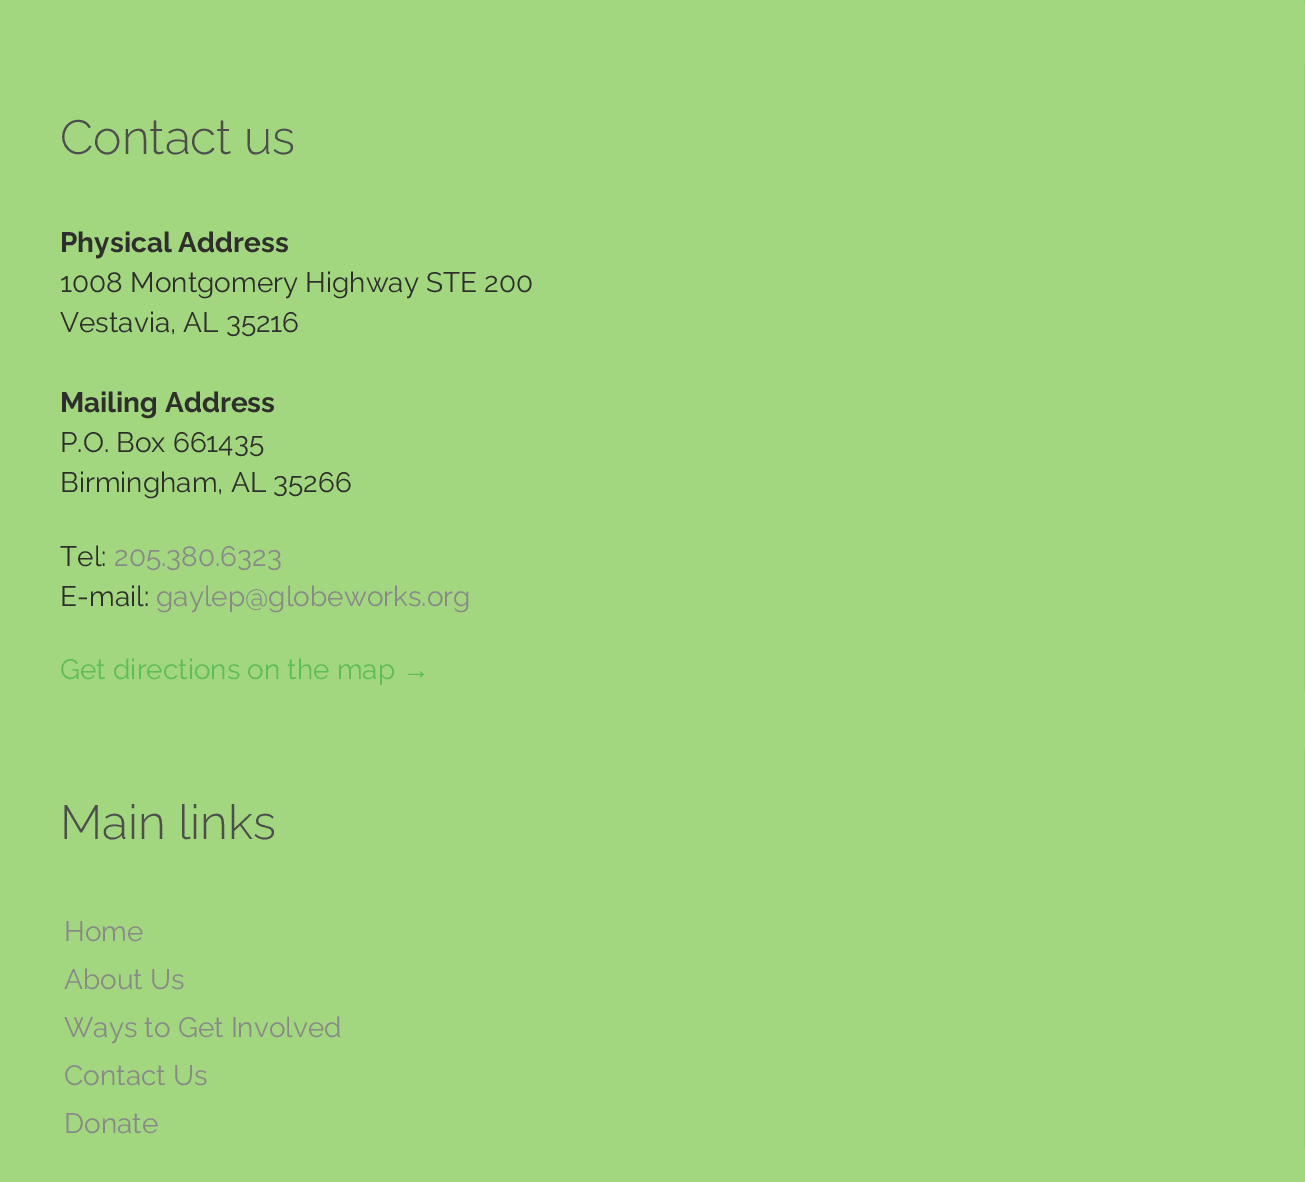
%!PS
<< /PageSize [1305 1182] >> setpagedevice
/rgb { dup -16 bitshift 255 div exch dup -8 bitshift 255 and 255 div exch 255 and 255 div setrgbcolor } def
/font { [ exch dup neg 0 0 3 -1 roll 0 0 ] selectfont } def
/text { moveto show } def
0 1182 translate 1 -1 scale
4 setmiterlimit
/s1 { /Raleway-Light 48 font 16#4D4D4D rgb } def
/s2 { /Raleway-Bold 28 font 16#2E2F2D rgb } def
/s3 { /Raleway-Regular 28 font 16#2E2F2D rgb } def
/s4 { /Raleway-Regular 28 font 16#898989 rgb } def
/s5 { /Raleway-Regular 28 font 16#5FBC5A rgb } def
/s6 { /LiberationSerif-Regular 28 font 16#5FBC5A rgb } def
16#A3D77F rgb
0 0 1305 1182 rectfill
16#95D16C rgb
1304 0 1 4 rectfill
1304 64 1 626 rectfill
s1
(Contact us) 60 154 text
s2
(Physical Address) 60 252 text
s3
(1008 Montgomery Highway STE 200) 60 292 text
(Vestavia, AL 35216) 60 332 text
s2
(Mailing Address) 60 412 text
s3
(P.O. Box 661435) 60 452 text
(Birmingham, AL 35266) 60 492 text
(Tel:) 60 566 text
s4
(205.380.6323) 114 566 text
s3
(E-mail:) 60 606 text
s4
(gaylep@globeworks.org) 156 606 text
s5
(Get directions on the map) 60 679 text
s6
(→) 402 679 text
16#95D16C rgb
1304 750 1 398 rectfill
s1
(Main links) 60 839 text
s4
(Home) 64 941 text
(About Us) 64 989 text
(Ways to Get Involved) 64 1037 text
(Contact Us) 64 1085 text
(Donate) 64 1133 text
showpage
